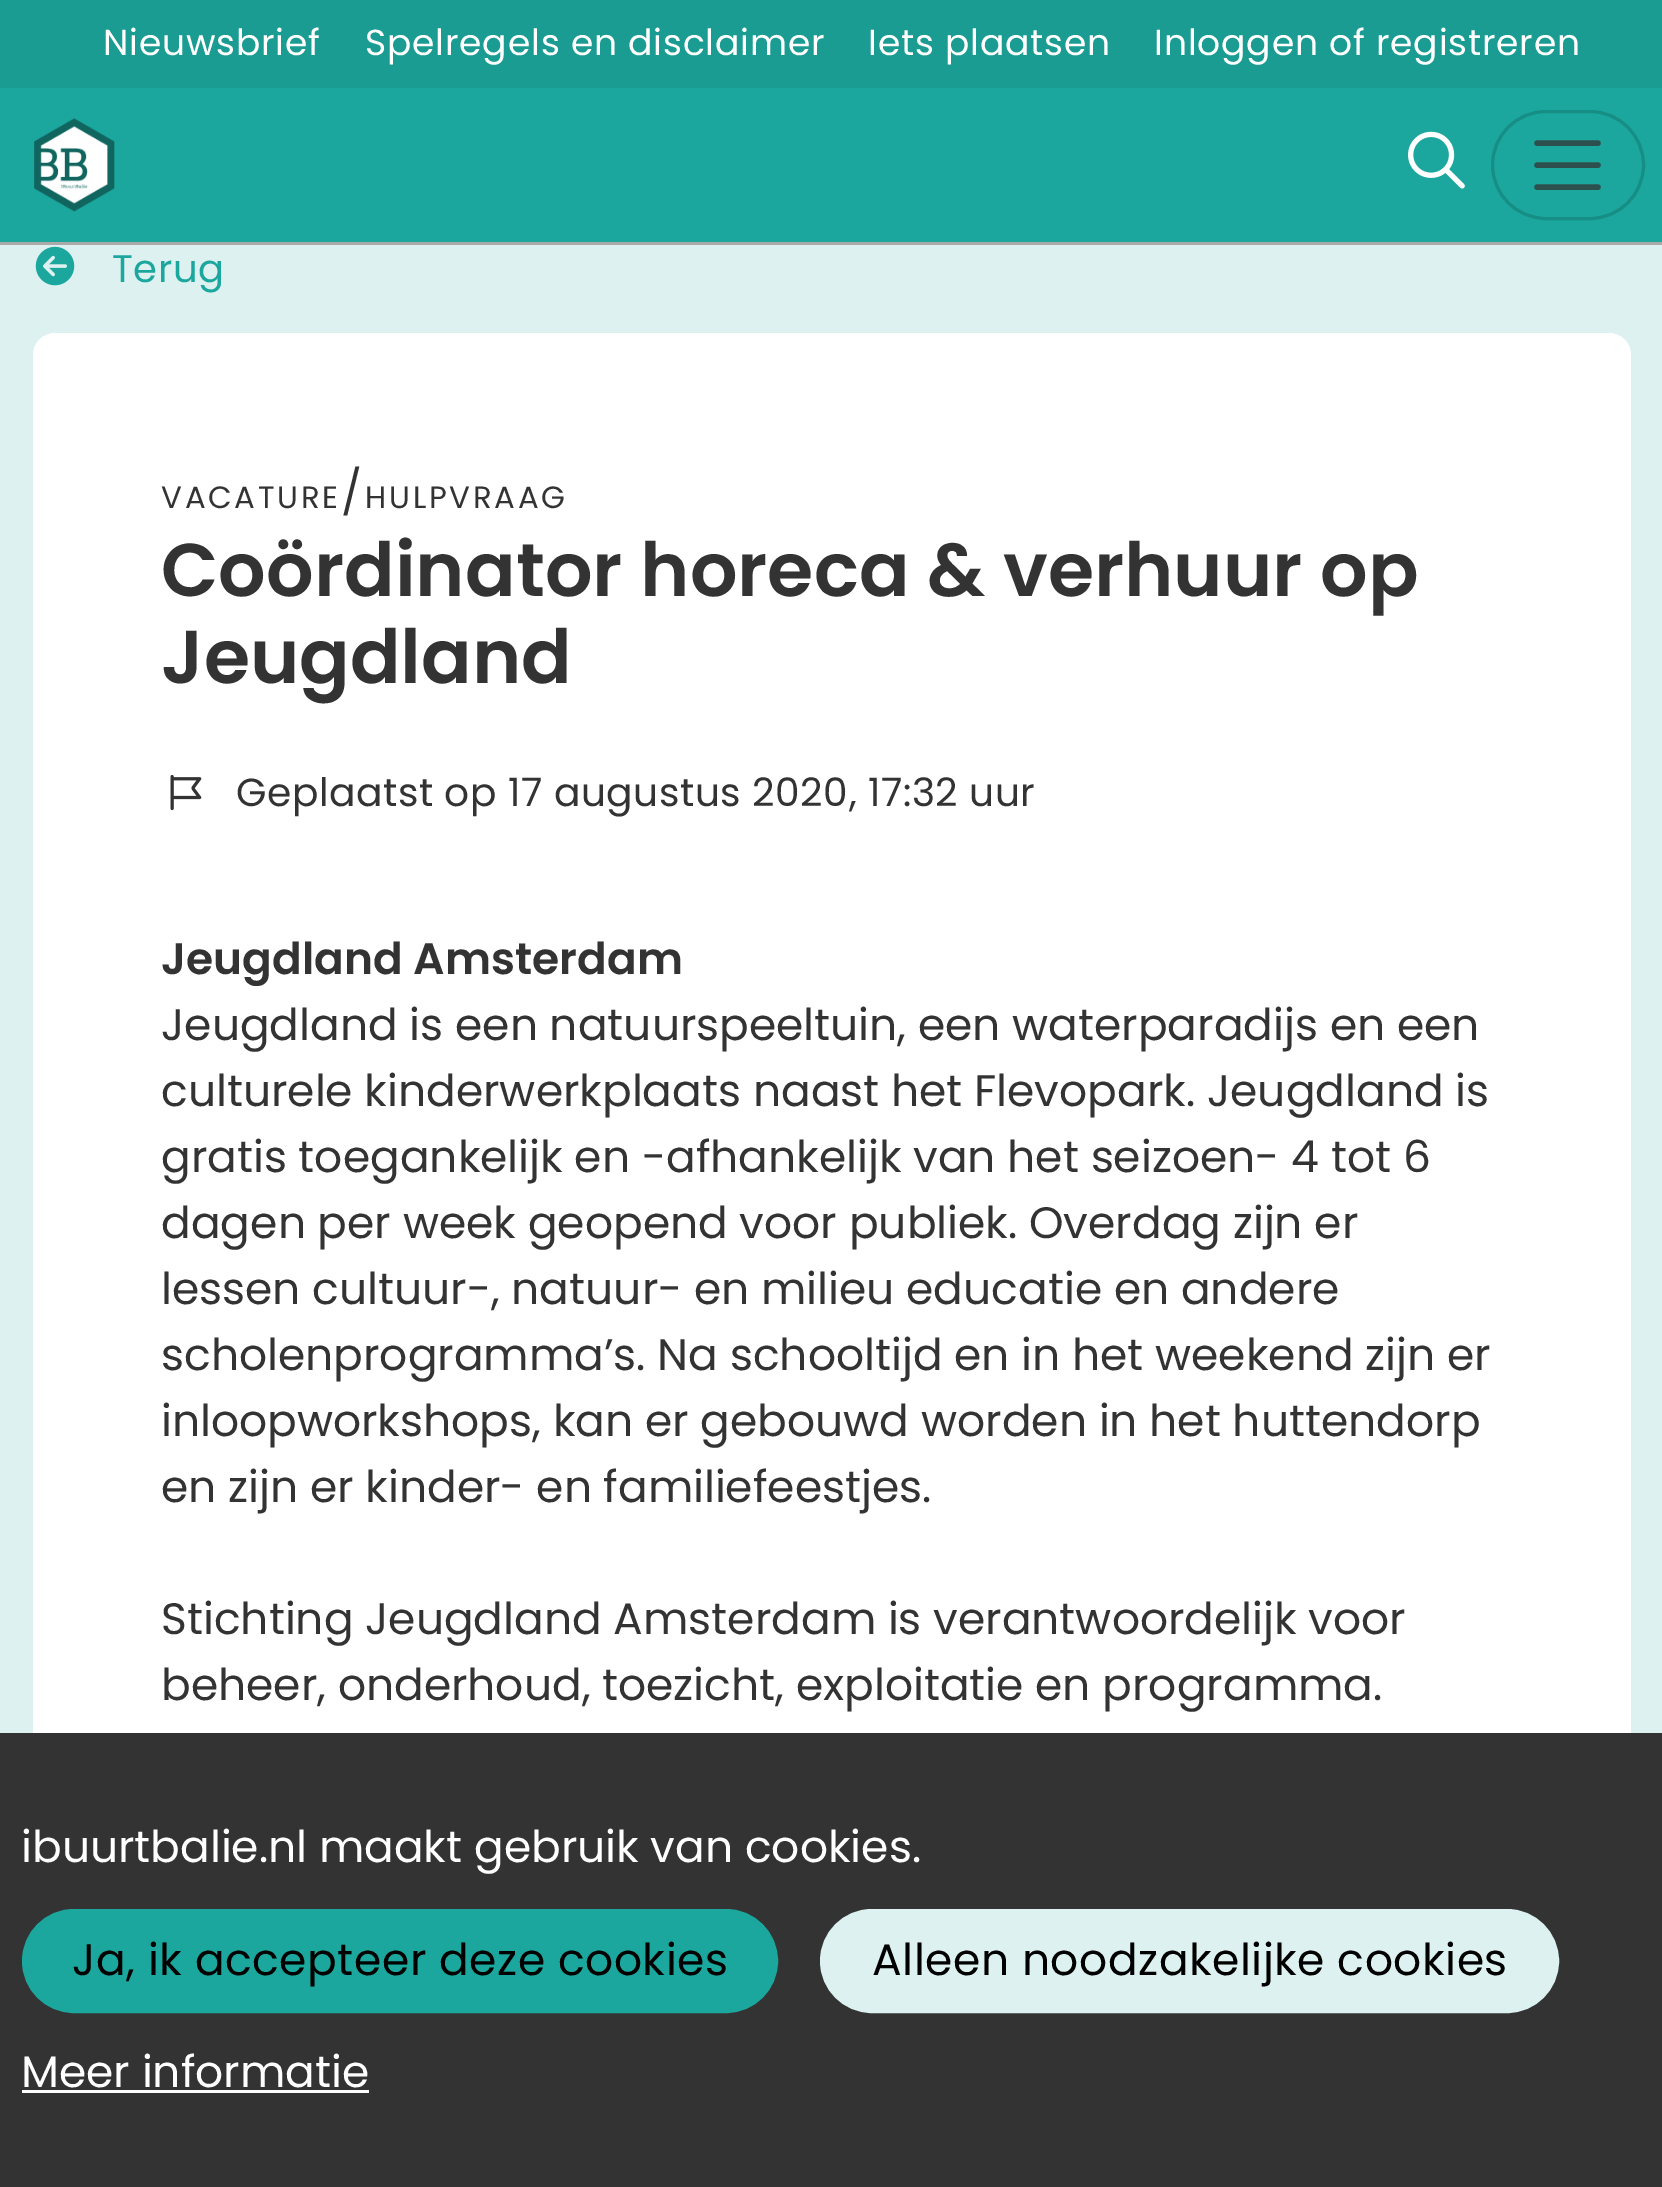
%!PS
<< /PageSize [1662 2187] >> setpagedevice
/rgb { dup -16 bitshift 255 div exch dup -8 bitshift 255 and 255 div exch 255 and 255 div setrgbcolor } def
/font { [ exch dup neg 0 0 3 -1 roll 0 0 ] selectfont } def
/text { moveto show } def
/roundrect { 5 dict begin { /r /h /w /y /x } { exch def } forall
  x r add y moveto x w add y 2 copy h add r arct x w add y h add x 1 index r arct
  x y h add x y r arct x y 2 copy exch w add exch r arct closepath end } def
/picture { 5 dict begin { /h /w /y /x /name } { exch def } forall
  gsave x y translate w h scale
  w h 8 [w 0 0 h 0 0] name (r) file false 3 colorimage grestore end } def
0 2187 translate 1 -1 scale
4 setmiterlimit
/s1 { /Poppins-SemiBold 74.75 font 16#333333 rgb } def
/s2 { /Poppins-SemiBold 44 font 16#333333 rgb } def
/s3 { /Poppins-Regular 44 font 16#333333 rgb } def
/s4 { /Poppins-Regular 44 font 16#FFFFFF rgb } def
16#DCF1F0 rgb
0 0 1662 2187 rectfill
16#1A9C93 rgb
0 0 1662 88 rectfill
/Poppins-Regular 36.1 font
16#FFFFFF rgb
103 55 moveto 0.8 0 (Nieuwsbrief) ashow
365 55 moveto 0.8 0 (Spelregels en disclaimer) ashow
868 55 moveto 0.8 0 (Iets plaatsen) ashow
1154 55 moveto 0.8 0 (Inloggen of registreren) ashow
16#1BA79D rgb
0 88 1662 154 rectfill
16#AAAAAA rgb
0 242 1662 3 rectfill
(pic1.raw) 34 118 81 94 picture
(pic2.raw) 1408 131 57 58 picture
16#178E85 rgb
3 setlinewidth
1492.5 111.5 151 107 53.5 roundrect stroke
16#2D504E rgb
5.5 setlinewidth
1 setlinecap
1537 143 moveto 1598 143 lineto 1537 165 moveto 1598 165 lineto 1537 187 moveto 1598 187 lineto stroke
(pic3.raw) 35 246 40 40 picture
/Poppins-Regular 38.5 font
16#1BA79D rgb
112 282 moveto 0.55 0 (Terug) ashow
16#FFFFFF rgb
33 333 1598 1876 22 roundrect fill
/Poppins-Regular 30.75 font
16#333333 rgb
161 508 moveto 2.75 0 (VACATURE) ashow
/Poppins-Regular 44 font
341 508 moveto 2.75 0 (/) ashow
/Poppins-Regular 30.75 font
365 508 moveto 2.75 0 (HULPVRAAG) ashow
s1
(Coördinator horeca & verhuur op) 161 596 text
(Jeugdland) 161 683 text
(pic4.raw) 170 774 32 37 picture
/Poppins-Regular 39.2 font
236 806 moveto 0.5 0 (Geplaatst op 17 augustus 2020, 17:32 uur) ashow
s2
(Jeugdland Amsterdam) 161 974 text
s3
(Jeugdland is een natuurspeeltuin, een waterparadijs en een) 161 1040 text
(culturele kinderwerkplaats naast het Flevopark. Jeugdland is) 161 1106 text
(gratis toegankelijk en -afhankelijk van het seizoen- 4 tot 6) 161 1172 text
(dagen per week geopend voor publiek. Overdag zijn er) 161 1238 text
(lessen cultuur-, natuur- en milieu educatie en andere) 161 1304 text
(scholenprogramma’s. Na schooltijd en in het weekend zijn er) 161 1370 text
(inloopworkshops, kan er gebouwd worden in het huttendorp) 161 1436 text
(en zijn er kinder- en familiefeestjes.) 161 1502 text
(Stichting Jeugdland Amsterdam is verantwoordelijk voor) 161 1634 text
(beheer, onderhoud, toezicht, exploitatie en programma.) 161 1700 text
0 1733 1662 454 rectfill
s4
(ibuurtbalie.nl maakt gebruik van cookies.) 21 1862 text
16#1BA79D rgb
23.5 1910.5 753 101 50.5 roundrect gsave fill grestore
3 setlinewidth
0 setlinecap
stroke
16#000000 rgb
72 1975 moveto 0.55 0 (Ja, ik accepteer deze cookies) ashow
16#DCF1F0 rgb
821.5 1910.5 736 101 50.5 roundrect gsave fill grestore
stroke
16#000000 rgb
872 1975 moveto 0.55 0 (Alleen noodzakelijke cookies) ashow
s4
(Meer informatie) 21 2087 text
22 2090 347 3 rectfill
showpage
